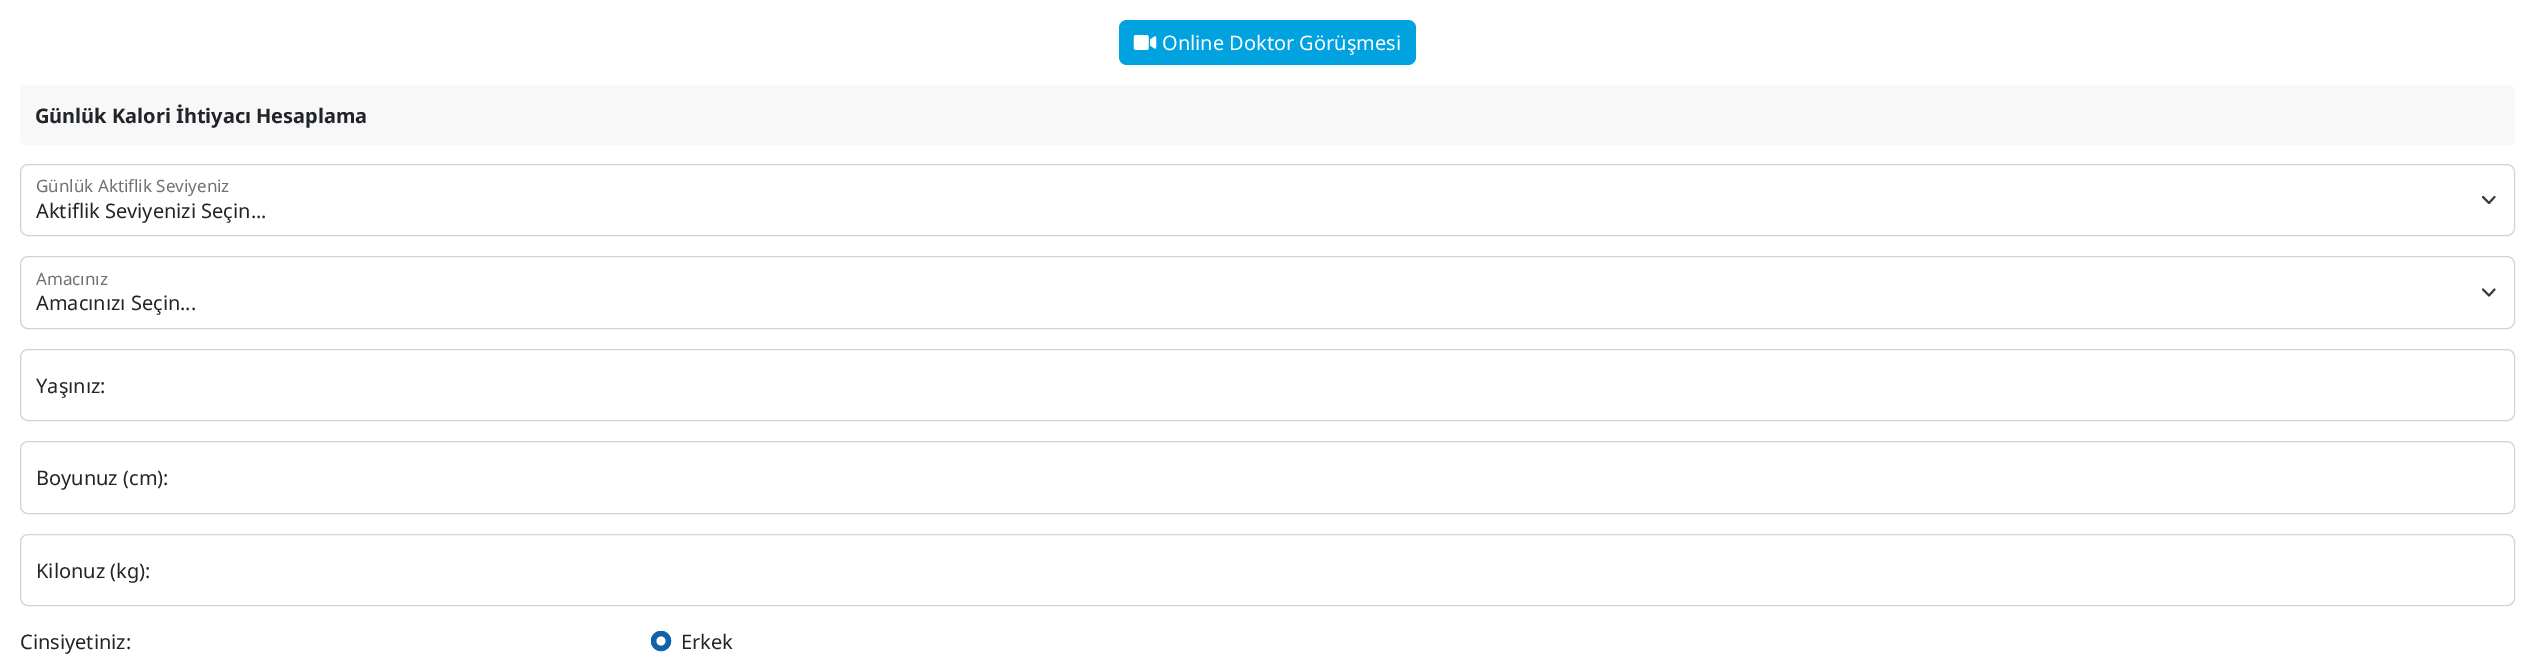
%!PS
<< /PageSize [2534 663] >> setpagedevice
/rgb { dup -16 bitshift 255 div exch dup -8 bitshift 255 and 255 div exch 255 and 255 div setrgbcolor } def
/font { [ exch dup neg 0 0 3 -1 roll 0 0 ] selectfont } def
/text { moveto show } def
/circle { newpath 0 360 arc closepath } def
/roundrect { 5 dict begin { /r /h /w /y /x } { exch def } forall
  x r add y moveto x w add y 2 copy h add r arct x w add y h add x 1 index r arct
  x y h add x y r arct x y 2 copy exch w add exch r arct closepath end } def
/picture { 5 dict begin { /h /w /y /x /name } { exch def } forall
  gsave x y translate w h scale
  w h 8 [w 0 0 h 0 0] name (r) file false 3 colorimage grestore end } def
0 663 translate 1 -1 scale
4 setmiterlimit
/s1 { /NotoSans-Regular 20 font 16#FFFFFF rgb } def
/s2 { /NotoSans-Bold 20 font 16#212529 rgb } def
/s3 { /NotoSans-Regular 17 font 16#6F7174 rgb } def
/s4 { /NotoSans-Regular 20 font 16#212529 rgb } def
16#FFFFFF rgb
0 0 2534 663 rectfill
16#01A2E0 rgb
1119 20 297 45 8 roundrect fill
(pic1.raw) 1133 35 24 15 picture
s1
(Online Doktor Görüşmesi) 1162 50 text
16#F8F8F8 rgb
20 85 2495 60 6 roundrect fill
s2
(Günlük Kalori İhtiyacı Hesaplama) 35 123 text
16#343A40 rgb
1.9 setlinewidth
1 setlinecap
1 setlinejoin
2483 197 moveto 2489 203 lineto 2494.5 197 lineto stroke
16#CED4DA rgb
1 setlinewidth
0 setlinecap
0 setlinejoin
20.5 164.5 2494 71 7.5 roundrect stroke
s3
(Günlük Aktiflik Seviyeniz) 36 192 text
s4
(Aktiflik Seviyenizi Seçin...) 36 218 text
16#343A40 rgb
1.9 setlinewidth
1 setlinecap
1 setlinejoin
2483 289.5 moveto 2489 295.5 lineto 2494.5 289.5 lineto stroke
16#CED4DA rgb
1 setlinewidth
0 setlinecap
0 setlinejoin
20.5 256.5 2494 72 7.5 roundrect stroke
s3
(Amacınız) 36 285 text
s4
(Amacınızı Seçin...) 36 310 text
16#CED4DA rgb
20.5 349.5 2494 71 7.5 roundrect stroke
s4
(Yaşınız:) 36 393 text
16#CED4DA rgb
20.5 441.5 2494 72 7.5 roundrect stroke
s4
(Boyunuz \(cm\):) 36 485 text
16#CED4DA rgb
20.5 534.5 2494 71 7.5 roundrect stroke
s4
(Kilonuz \(kg\):) 36 578 text
(Cinsiyetiniz:) 20 649 text
16#1163A9 rgb
661 641 10 circle fill
16#FFFFFF rgb
661 641 4.5 circle fill
16#1163A9 rgb
661 641 9.5 circle stroke
s4
(Erkek) 681 649 text
showpage
